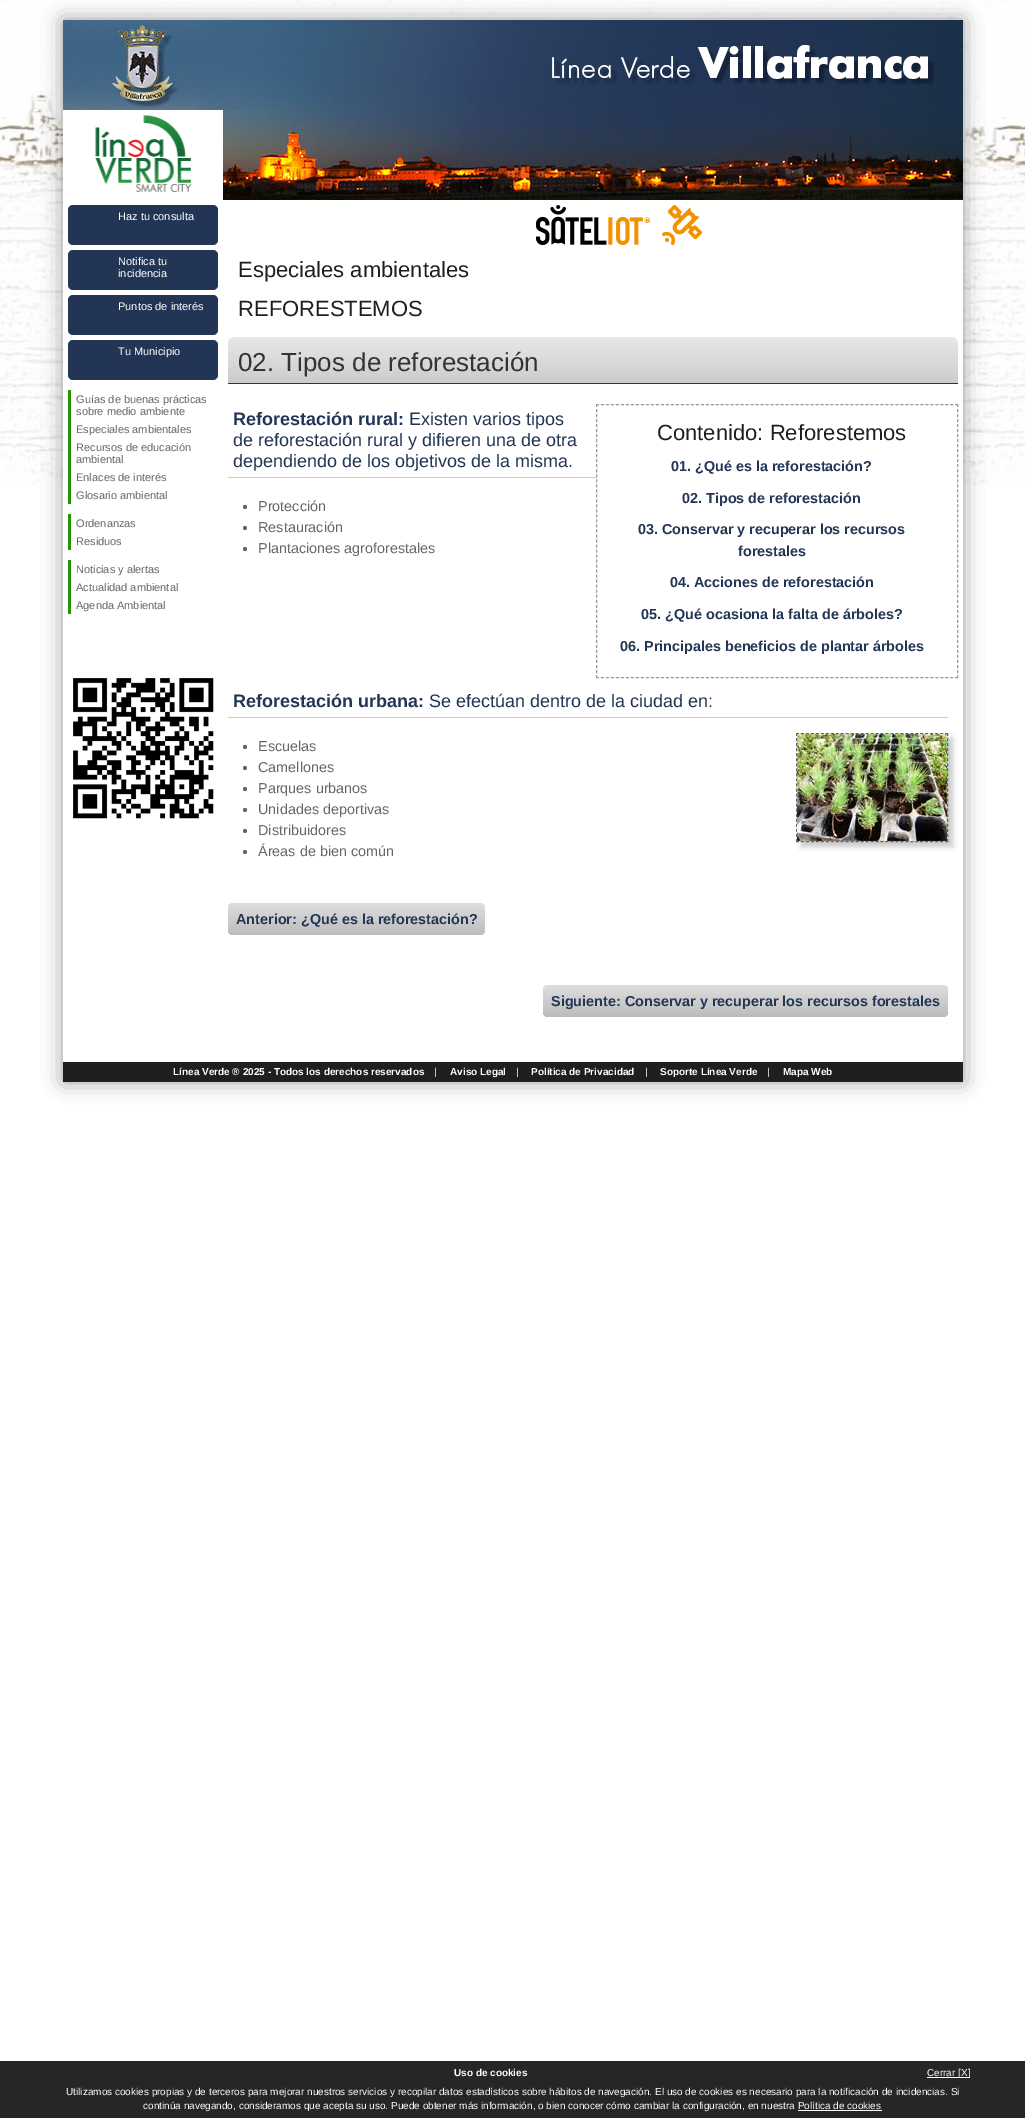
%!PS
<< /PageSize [1025 2118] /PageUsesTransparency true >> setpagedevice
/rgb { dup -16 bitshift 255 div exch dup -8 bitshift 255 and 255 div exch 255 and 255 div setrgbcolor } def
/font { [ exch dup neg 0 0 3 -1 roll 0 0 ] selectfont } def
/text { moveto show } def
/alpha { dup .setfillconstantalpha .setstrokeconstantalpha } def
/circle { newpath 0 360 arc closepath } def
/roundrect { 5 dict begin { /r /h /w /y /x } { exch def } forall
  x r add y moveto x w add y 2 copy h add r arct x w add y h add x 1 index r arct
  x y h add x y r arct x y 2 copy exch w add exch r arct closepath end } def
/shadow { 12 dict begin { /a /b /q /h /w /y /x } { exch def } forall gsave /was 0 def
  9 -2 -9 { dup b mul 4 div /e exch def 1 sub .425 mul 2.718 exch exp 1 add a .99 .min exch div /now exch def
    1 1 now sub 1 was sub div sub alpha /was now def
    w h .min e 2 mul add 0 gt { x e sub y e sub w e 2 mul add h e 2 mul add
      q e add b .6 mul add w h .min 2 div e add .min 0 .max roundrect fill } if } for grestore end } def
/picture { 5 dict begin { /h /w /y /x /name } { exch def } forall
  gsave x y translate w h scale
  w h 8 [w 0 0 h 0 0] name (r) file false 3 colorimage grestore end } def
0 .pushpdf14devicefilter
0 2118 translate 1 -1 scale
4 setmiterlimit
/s1 { /LiberationSans-Regular 11 font 16#FFFFFF rgb } def
/s2 { /LiberationSans-Regular 11 font 16#666666 rgb } def
/s3 { /LiberationSans-Regular 22 font 16#1F1F1E rgb } def
/s4 { /LiberationSans-Regular 26 font 16#333333 rgb } def
/s5 { /LiberationSans-Bold 18 font 16#223555 rgb } def
/s6 { /LiberationSans-Regular 18 font 16#223555 rgb } def
/s7 { /LiberationSans-Bold 14.4 font 16#223555 rgb } def
/s8 { /LiberationSans-Regular 14.4 font 16#666666 rgb } def
/s9 { /LiberationSans-Bold 10 font 16#FFFFFF rgb } def
/s10 { /LiberationSans-Regular 10 font 16#FFFFFF rgb } def
16#FFFFFF rgb
0 0 1025 2118 rectfill
(pic1.raw) 0 0 1025 486 picture
16#000000 rgb
63 20 900 1062 0 10 0.4 shadow
16#FFFFFF rgb
63 110 900 952 rectfill
(pic2.raw) 63 20 900 90 picture
(pic3.raw) 95 115 97 77 picture
(pic4.raw) 223 110 740 90 picture
(pic5.raw) 536 205 166 40 picture
16#223555 rgb
68 205 150 40 5 roundrect fill
s1
(Haz tu consulta) 118 220 text
16#223555 rgb
68 250 150 40 5 roundrect fill
s1
(Notifica tu) 118 265 text
(incidencia) 118 277 text
16#223555 rgb
68 295 150 40 5 roundrect fill
s1
(Puntos de interés) 118 310 text
16#223555 rgb
68 340 150 40 5 roundrect fill
s1
(Tu Municipio) 118 355 text
16#259603 rgb
68 390 3 114 rectfill
s2
(Guías de buenas prácticas) 76 403 text
(sobre medio ambiente) 76 415 text
(Especiales ambientales) 76 433 text
(Recursos de educación) 76 451 text
(ambiental) 76 463 text
(Enlaces de interés) 76 481 text
(Glosario ambiental) 76 499 text
16#259603 rgb
68 514 3 36 rectfill
s2
(Ordenanzas) 76 527 text
(Residuos) 76 545 text
16#259603 rgb
68 560 3 54 rectfill
s2
(Noticias y alertas) 76 573 text
(Actualidad ambiental) 76 591 text
(Agenda Ambiental) 76 609 text
(pic6.raw) 73 678 141 141 picture
s3
(Especiales ambientales) 238 277 text
(REFORESTEMOS) 238 316 text
gsave 236 337 moveto 950 337 lineto 954.5 337 958 340.5 958 345 curveto 958 383 lineto 228 383 lineto 228 345 lineto 228 340.5 231.5 337 236 337 curveto closepath clip newpath
<< /ShadingType 2 /ColorSpace /DeviceRGB /Coords [593 337 593 383] /Extend [true true] /Function << /FunctionType 2 /Domain [0 1] /C0 [0.91 0.91 0.91] /C1 [0.8 0.8 0.8] /N 1 >> >> shfill grestore
16#333333 rgb
228 383 730 1 rectfill
s4
(02. Tipos de reforestación) 238 371 text
16#CCCCCC rgb
228 477 368 1 rectfill
s5
(Reforestación rural:) 233 425 text
s6
(Existen varios tipos) 409 425 text
(de reforestación rural y difieren una de otra) 233 446 text
(dependiendo de los objetivos de la misma.) 233 467 text
16#999999 rgb
[3 1.99] 0 setdash
596 404.5 moveto 958 404.5 lineto stroke
[3 2.02] 0 setdash
957.5 404 moveto 957.5 678 lineto stroke
[3 1.99] 0 setdash
596 677.5 moveto 958 677.5 lineto stroke
[3 2.02] 0 setdash
596.5 404 moveto 596.5 678 lineto stroke
s3
(Contenido: Reforestemos) 657 440 text
s7
(01. ¿Qué es la reforestación?) 671 471 text
(02. Tipos de reforestación) 682 503 text
(03. Conservar y recuperar los recursos) 638 534 text
(forestales) 738 556 text
(04. Acciones de reforestación) 670 587 text
(05. ¿Qué ocasiona la falta de árboles?) 641 619 text
(06. Principales beneficios de plantar árboles) 620 651 text
16#666666 rgb
245 507 2 circle fill
s8
(Protección) 258 511 text
245 528 2 circle fill
(Restauración) 258 532 text
245 549 2 circle fill
(Plantaciones agroforestales) 258 553 text
16#CCCCCC rgb
228 717 720 1 rectfill
s5
(Reforestación urbana:) 233 707 text
s6
(Se efectúan dentro de la ciudad en:) 429 707 text
16#666666 rgb
245 747 2 circle fill
s8
(Escuelas) 258 751 text
245 768 2 circle fill
(Camellones) 258 772 text
245 789 2 circle fill
(Parques urbanos) 258 793 text
245 810 2 circle fill
(Unidades deportivas) 258 814 text
245 831 2 circle fill
(Distribuidores) 258 835 text
245 852 2 circle fill
(Áreas de bien común) 258 856 text
16#CCCCCC rgb
801 738 152 109 0 2.5 1 shadow
16#666666 rgb
[3 1.97] 0 setdash
796 733.5 moveto 948 733.5 lineto stroke
[3 2.05] 0 setdash
947.5 733 moveto 947.5 842 lineto stroke
[3 1.97] 0 setdash
796 841.5 moveto 948 841.5 lineto stroke
[3 2.05] 0 setdash
796.5 733 moveto 796.5 842 lineto stroke
(pic7.raw) 797 734 150 107 picture
gsave 228 903 257 32 5 roundrect clip newpath
<< /ShadingType 2 /ColorSpace /DeviceRGB /Coords [357 903 357 935] /Extend [true true] /Function << /FunctionType 2 /Domain [0 1] /C0 [0.871 0.871 0.871] /C1 [0.737 0.737 0.737] /N 1 >> >> shfill grestore
s7
(Anterior: ¿Qué es la reforestación?) 236 924 text
gsave 543 985 405 32 5 roundrect clip newpath
<< /ShadingType 2 /ColorSpace /DeviceRGB /Coords [746 985 746 1017] /Extend [true true] /Function << /FunctionType 2 /Domain [0 1] /C0 [0.871 0.871 0.871] /C1 [0.737 0.737 0.737] /N 1 >> >> shfill grestore
(Siguiente: Conservar y recuperar los recursos forestales) 551 1006 text
16#1F1F1E rgb
63 1062 900 20 rectfill
s9
(Línea Verde ® 2025 - Todos los derechos reservados) 173 1075 text
s10
(|) 434 1075 text
s9
(Aviso Legal) 450 1075 text
s10
(|) 516 1075 text
s9
(Política de Privacidad) 531 1075 text
s10
(|) 645 1075 text
s9
(Soporte Línea Verde) 660 1075 text
s10
(|) 767 1075 text
s9
(Mapa Web) 783 1075 text
16#262626 rgb
0 2061 1025 57 rectfill
s9
(Uso de cookies) 454 2076 text
927 2077 43 1 rectfill
s10
(Cerrar [X]) 927 2076 text
(Utilizamos cookies propias y de terceros para mejorar nuestros servicios y recopilar datos estadísticos sobre hábitos de navegación. El uso de cookies es necesario para la notificación de incidencias. Si) 66 2095 text
(continúa navegando, consideramos que acepta su uso. Puede obtener más información, o bien conocer cómo cambiar la configuración, en nuestra Política de cookies) 143 2109 text
798 2110 84 1 rectfill
.poppdf14devicefilter showpage
